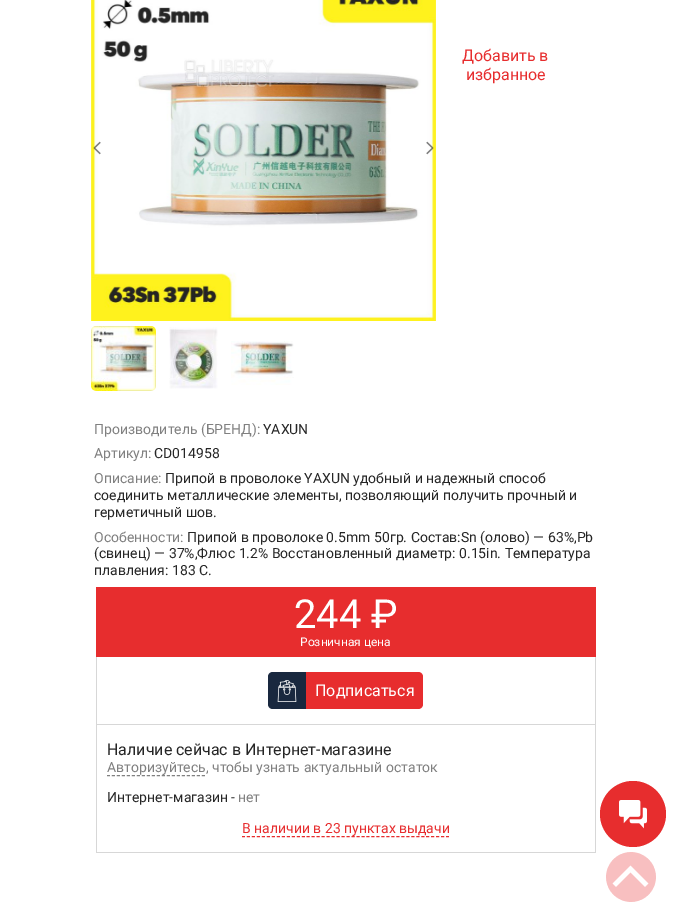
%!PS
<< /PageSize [681 907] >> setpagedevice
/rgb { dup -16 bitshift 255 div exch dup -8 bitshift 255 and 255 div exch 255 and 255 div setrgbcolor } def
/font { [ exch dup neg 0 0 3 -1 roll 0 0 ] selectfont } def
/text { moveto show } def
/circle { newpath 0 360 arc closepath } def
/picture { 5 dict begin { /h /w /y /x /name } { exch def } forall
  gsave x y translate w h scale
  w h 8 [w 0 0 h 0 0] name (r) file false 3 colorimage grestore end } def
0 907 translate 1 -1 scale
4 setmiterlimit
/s1 { /Roboto-Regular 16 font 16#E72D2E rgb } def
/s2 { /Roboto-Regular 14 font 16#808080 rgb } def
/s3 { /Roboto-Regular 14 font 16#262626 rgb } def
/s4 { /Roboto-Regular 40 font 16#FFFFFF rgb } def
/s5 { /Roboto-Regular 12 font 16#FFFFFF rgb } def
/s6 { /Roboto-Regular 16 font 16#FFFFFF rgb } def
/s7 { /Roboto-Regular 16 font 16#262626 rgb } def
/s8 { /Roboto-Regular 14 font 16#E72D2E rgb } def
16#FFFFFF rgb
0 0 681 907 rectfill
(pic1.raw) 91 0 345 321 picture
(pic2.raw) 93 141 8 14 picture
(pic3.raw) 426 141 8 14 picture
(pic4.raw) 91 326 65 65 picture
(pic5.raw) 169 327 49 62 picture
(pic6.raw) 231 341 63 44 picture
s1
(Добавить в) 462 61 text
(избранное) 466 80 text
s2
(Производитель \(БРЕНД\):) 94 434 text
s3
(YAXUN) 263 434 text
s2
(Артикул:) 94 458 text
s3
(CD014958) 154 458 text
s2
(Описание:) 94 483 text
s3
(Припой в проволоке YAXUN удобный и надежный способ) 165 483 text
(соединить металлические элементы, позволяющий получить прочный и) 94 500 text
(герметичный шов.) 94 517 text
s2
(Особенности:) 94 542 text
s3
(Припой в проволоке 0.5mm 50гр. Состав:Sn \(олово\) — 63%,Pb) 187 542 text
(\(свинец\) — 37%,Флюс 1.2% Восстановленный диаметр: 0.15in. Температура) 94 558 text
(плавления: 183 C.) 94 575 text
16#E72D2E rgb
96 587 500 70 rectfill
s4
(244 ₽) 294 628 text
s5
(Розничная цена) 300 646 text
16#D7D7D7 rgb
595 657 1 196 rectfill
96 724 500 1 rectfill
96 657 1 68 rectfill
16#19283F rgb
273 672 moveto 306 672 lineto 306 709 lineto 273 709 lineto 270 709 268 707 268 704 curveto 268 677 lineto 268 674 270 672 273 672 curveto closepath fill
(pic7.raw) 277 680 20 22 picture
16#E72D2E rgb
306 672 moveto 418 672 lineto 421 672 423 674 423 677 curveto 423 704 lineto 423 707 421 709 418 709 curveto 306 709 lineto closepath fill
s6
(Подписаться) 315 696 text
16#D7D7D7 rgb
96 852 500 1 rectfill
96 725 1 128 rectfill
s7
(Наличие сейчас в Интернет-магазине) 107 755 text
s2
(Авторизуйтесь, чтобы узнать актуальный остаток) 107 772 text
[3 2] 0 setdash
107 775.5 moveto 205 775.5 lineto stroke
s3
(Интернет-магазин -) 107 802 text
s2
(нет) 238 802 text
s8
(В наличии в 23 пунктах выдачи) 242 833 text
[3 1.98] 0 setdash
242 836.5 moveto 449 836.5 lineto stroke
633 814 33 circle fill
(pic8.raw) 619 800 28 29 picture
(pic9.raw) 606 852 50 50 picture
showpage
